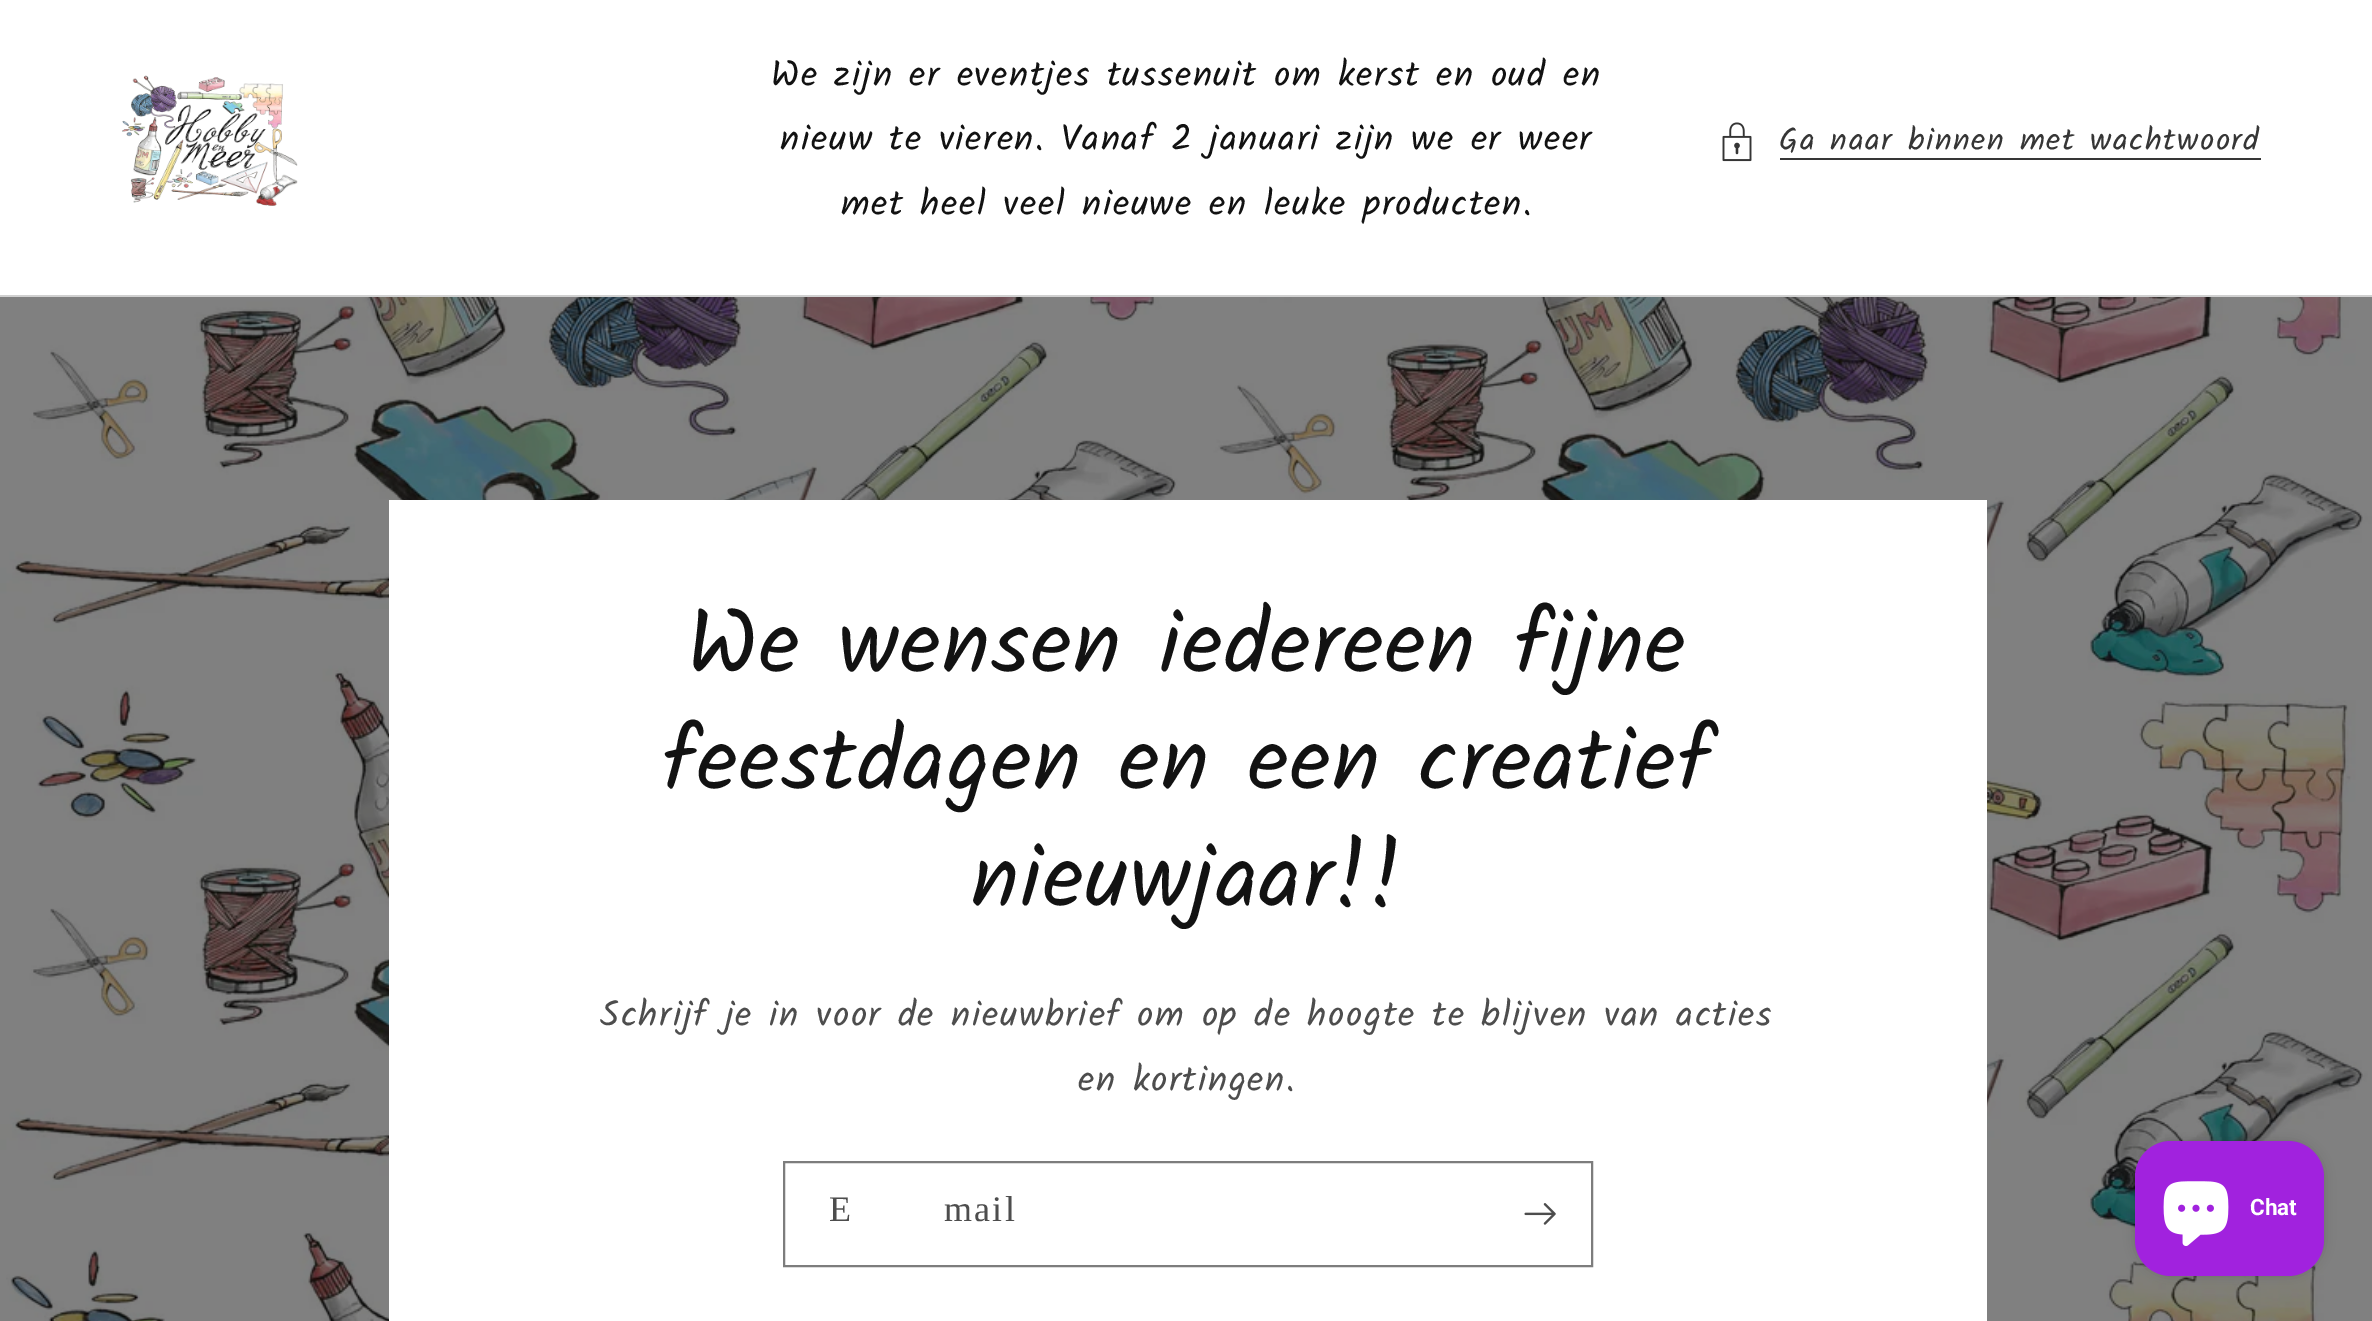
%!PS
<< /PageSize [2372 1321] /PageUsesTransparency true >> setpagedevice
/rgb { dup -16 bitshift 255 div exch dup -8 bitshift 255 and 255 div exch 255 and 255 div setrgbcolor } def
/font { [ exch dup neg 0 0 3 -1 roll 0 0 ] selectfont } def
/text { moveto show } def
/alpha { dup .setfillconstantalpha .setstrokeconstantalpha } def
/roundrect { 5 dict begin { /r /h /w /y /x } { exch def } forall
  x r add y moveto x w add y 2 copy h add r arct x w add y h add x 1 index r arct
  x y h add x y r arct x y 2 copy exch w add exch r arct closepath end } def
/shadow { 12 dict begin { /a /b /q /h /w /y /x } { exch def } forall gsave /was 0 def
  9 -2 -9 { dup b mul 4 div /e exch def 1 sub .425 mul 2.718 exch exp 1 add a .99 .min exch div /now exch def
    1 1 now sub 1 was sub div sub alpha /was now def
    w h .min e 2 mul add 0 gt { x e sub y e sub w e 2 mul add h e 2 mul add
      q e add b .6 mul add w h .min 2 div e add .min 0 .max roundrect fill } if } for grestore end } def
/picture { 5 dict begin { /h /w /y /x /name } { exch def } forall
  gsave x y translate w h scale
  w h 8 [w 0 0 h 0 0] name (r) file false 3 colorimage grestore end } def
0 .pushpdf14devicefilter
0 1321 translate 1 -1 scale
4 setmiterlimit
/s1 { /Roboto-Bold 22.5 font 16#FFFFFF rgb } def
16#FFFFFF rgb
0 0 2372 1321 rectfill
(pic1.raw) 122 75 176 131 picture
/Kalam-Regular 36 font
16#121212 rgb
771 86 moveto 1.57 0 (We zijn er eventjes tussenuit om kerst en oud en) ashow
780 150 moveto 1.57 0 (nieuw te vieren. Vanaf 2 januari zijn we er weer) ashow
841 215 moveto 1.57 0 (met heel veel nieuwe en leuke producten.) ashow
(pic2.raw) 1722 122 30 40 picture
/Kalam-Regular 31.5 font
16#363636 rgb
1779 150 moveto 1.57 0 (Ga naar binnen met wachtwoord) ashow
1780 158 481 2 rectfill
16#D0D0D0 rgb
0 295 2372 2 rectfill
(pic3.raw) 0 297 2372 1024 picture
16#FFFFFF rgb
389 500 1598 821 rectfill
/Kalam-Regular 90 font
16#121212 rgb
687 673 moveto 1.35 0 (We wensen iedereen fijne) ashow
662 790 moveto 1.35 0 (feestdagen en een creatief) ashow
971 907 moveto 1.35 0 (nieuwjaar!!) ashow
/Kalam-Regular 36 font
16#4D4D4D rgb
600 1026 moveto 1.57 0 (Schrijf je in voor de nieuwbrief om op de hoogte te blijven van acties) ashow
1078 1091 moveto 1.57 0 (en kortingen.) ashow
16#7D7D7D rgb
2 setlinewidth
784 1162 808 104 rectstroke
/LiberationSerif-Regular 36 font
16#4D4D4D rgb
829 1221 moveto 2.25 0 (E‑mail) ashow
(pic4.raw) 1524 1203 32 22 picture
16#000000 rgb
2135 1141 189 135 36 5.5 0.15 shadow
16#A122DE rgb
2135 1141 189 135 36 roundrect fill
(pic5.raw) 2163 1181 66 65 picture
s1
(Chat) 2250 1215 text
.poppdf14devicefilter showpage
